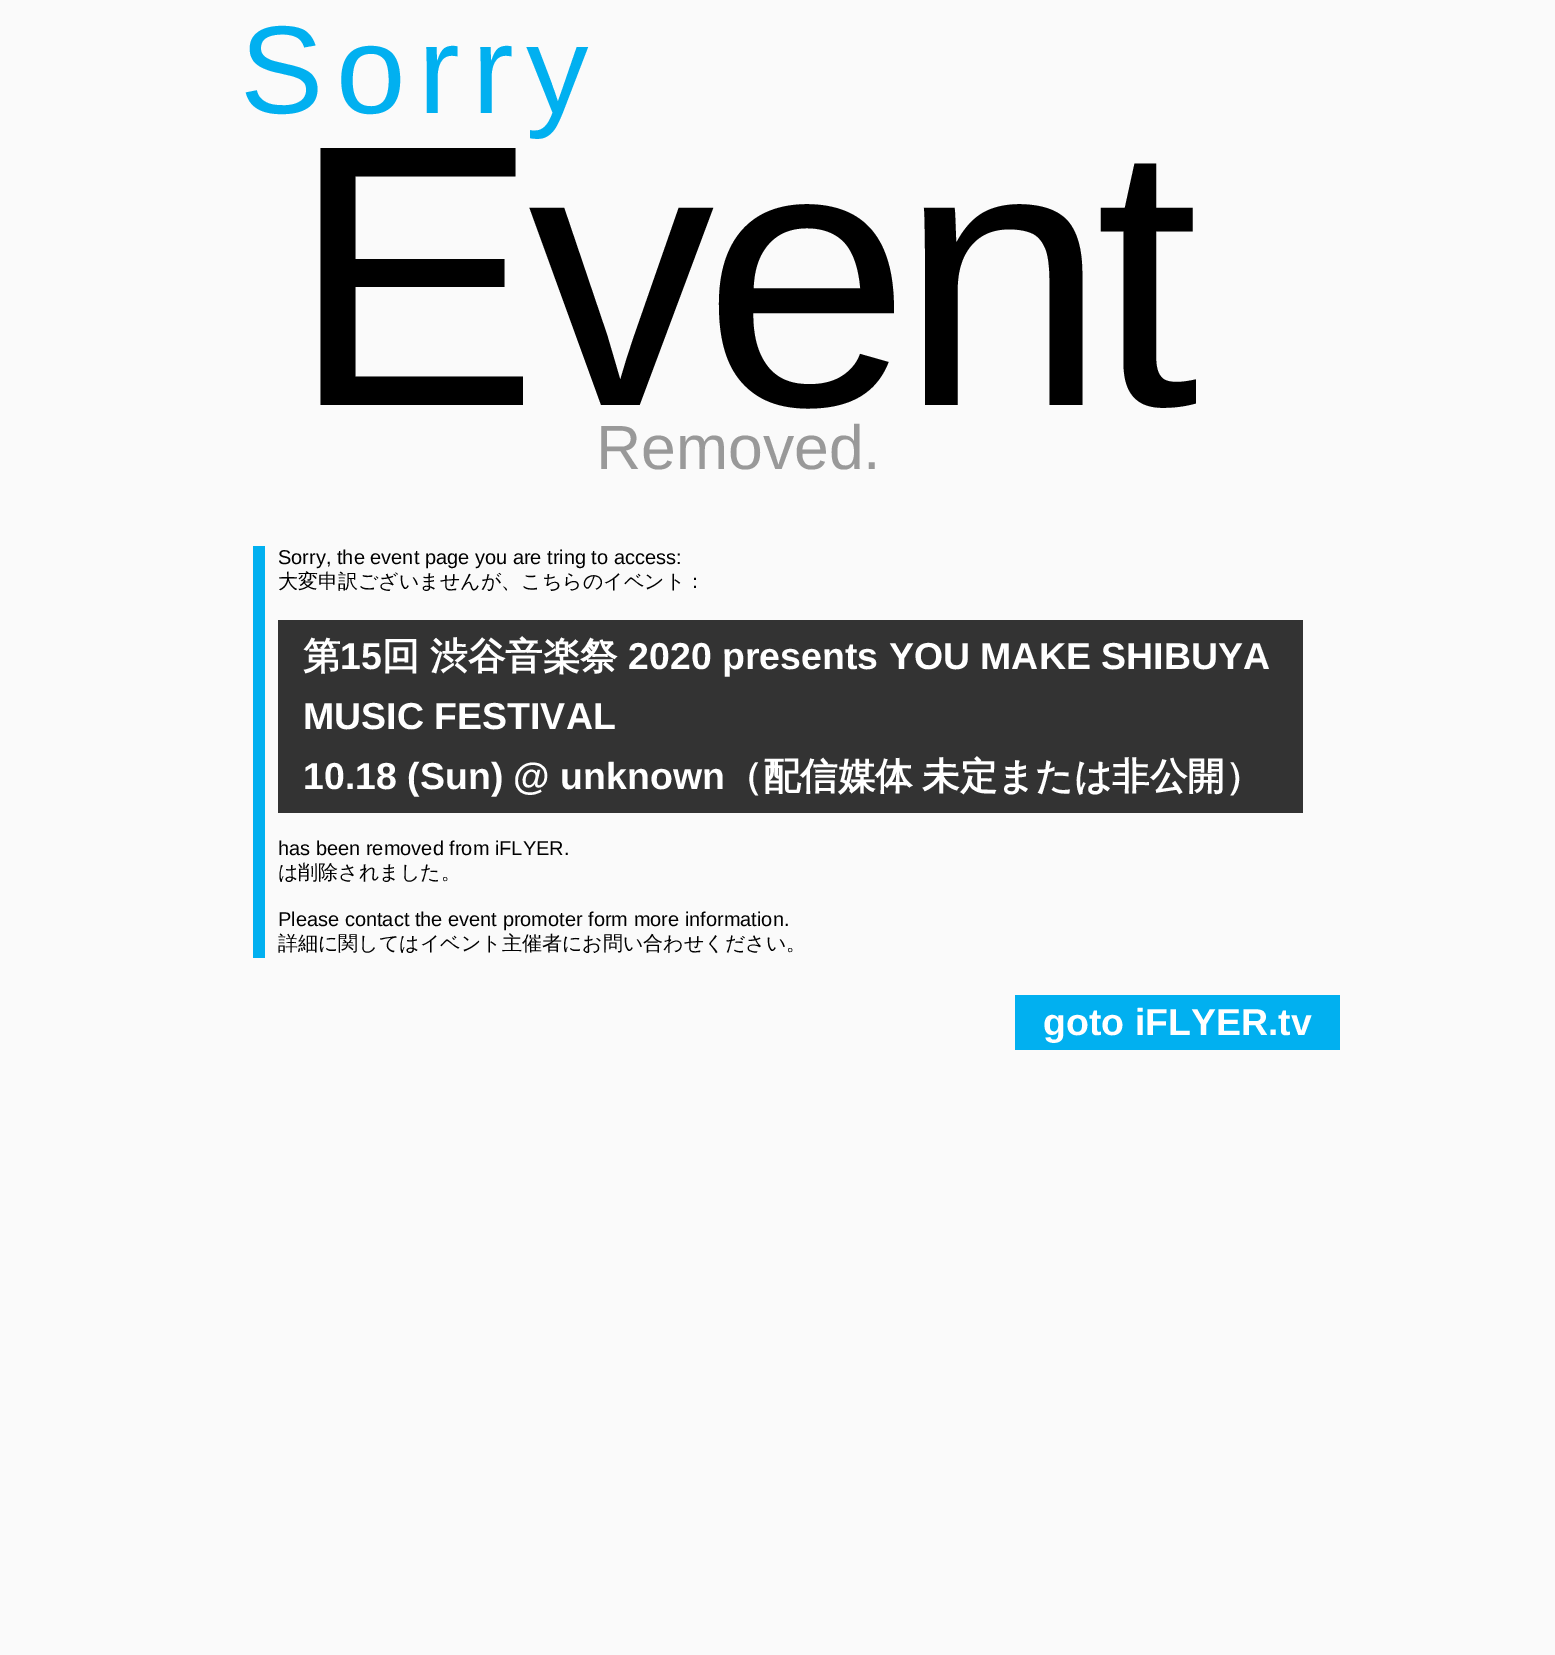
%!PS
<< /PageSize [1555 1655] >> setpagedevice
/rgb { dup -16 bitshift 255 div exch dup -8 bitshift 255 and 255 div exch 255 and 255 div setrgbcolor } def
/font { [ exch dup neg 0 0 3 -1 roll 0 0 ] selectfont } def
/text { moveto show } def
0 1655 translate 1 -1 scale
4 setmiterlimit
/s1 { /LiberationSans-Regular 62.5 font 16#999999 rgb } def
/s2 { /LiberationSans-Regular 20 font 16#000000 rgb } def
/s3 { /WenQuanYiZenHei-Medium 20 font 16#000000 rgb } def
/s4 { /WenQuanYiZenHei-Bold 37.5 font 16#FFFFFF rgb } def
/s5 { /LiberationSans-Bold 37.5 font 16#FFFFFF rgb } def
16#FAFAFA rgb
0 0 1555 1655 rectfill
/LiberationSans-Regular 125 font
16#01B0F0 rgb
240 113 moveto 12.5 0 (Sorry) ashow
/LiberationSans-Regular 375 font
16#000000 rgb
290 405 moveto -12.5 0 (Event) ashow
s1
(Removed.) 596 469 text
16#01B0F0 rgb
253 546 12 412 rectfill
s2
(Sorry, the event page you are tring to access:) 278 564 text
s3
(大変申訳ございませんが、こちらのイベント：) 278 588 text
16#333333 rgb
278 620 1025 193 rectfill
s4
(第) 303 669 text
s5
(15) 340 669 text
s4
(回) 382 669 text
(渋谷音楽祭) 430 669 text
s5
(2020 presents YOU MAKE SHIBUYA) 628 669 text
(MUSIC FESTIVAL) 303 729 text
(10.18 \(Sun\) @ unknown) 303 789 text
s4
(（配信媒体) 725 789 text
(未定または非公開）) 922 789 text
s2
(has been removed from iFLYER.) 278 855 text
s3
(は削除されました。) 278 879 text
s2
(Please contact the event promoter form more information.) 278 926 text
s3
(詳細に関してはイベント主催者にお問い合わせください。) 278 950 text
16#01B0F0 rgb
1015 995 325 55 rectfill
s5
(goto iFLYER.tv) 1043 1035 text
showpage
